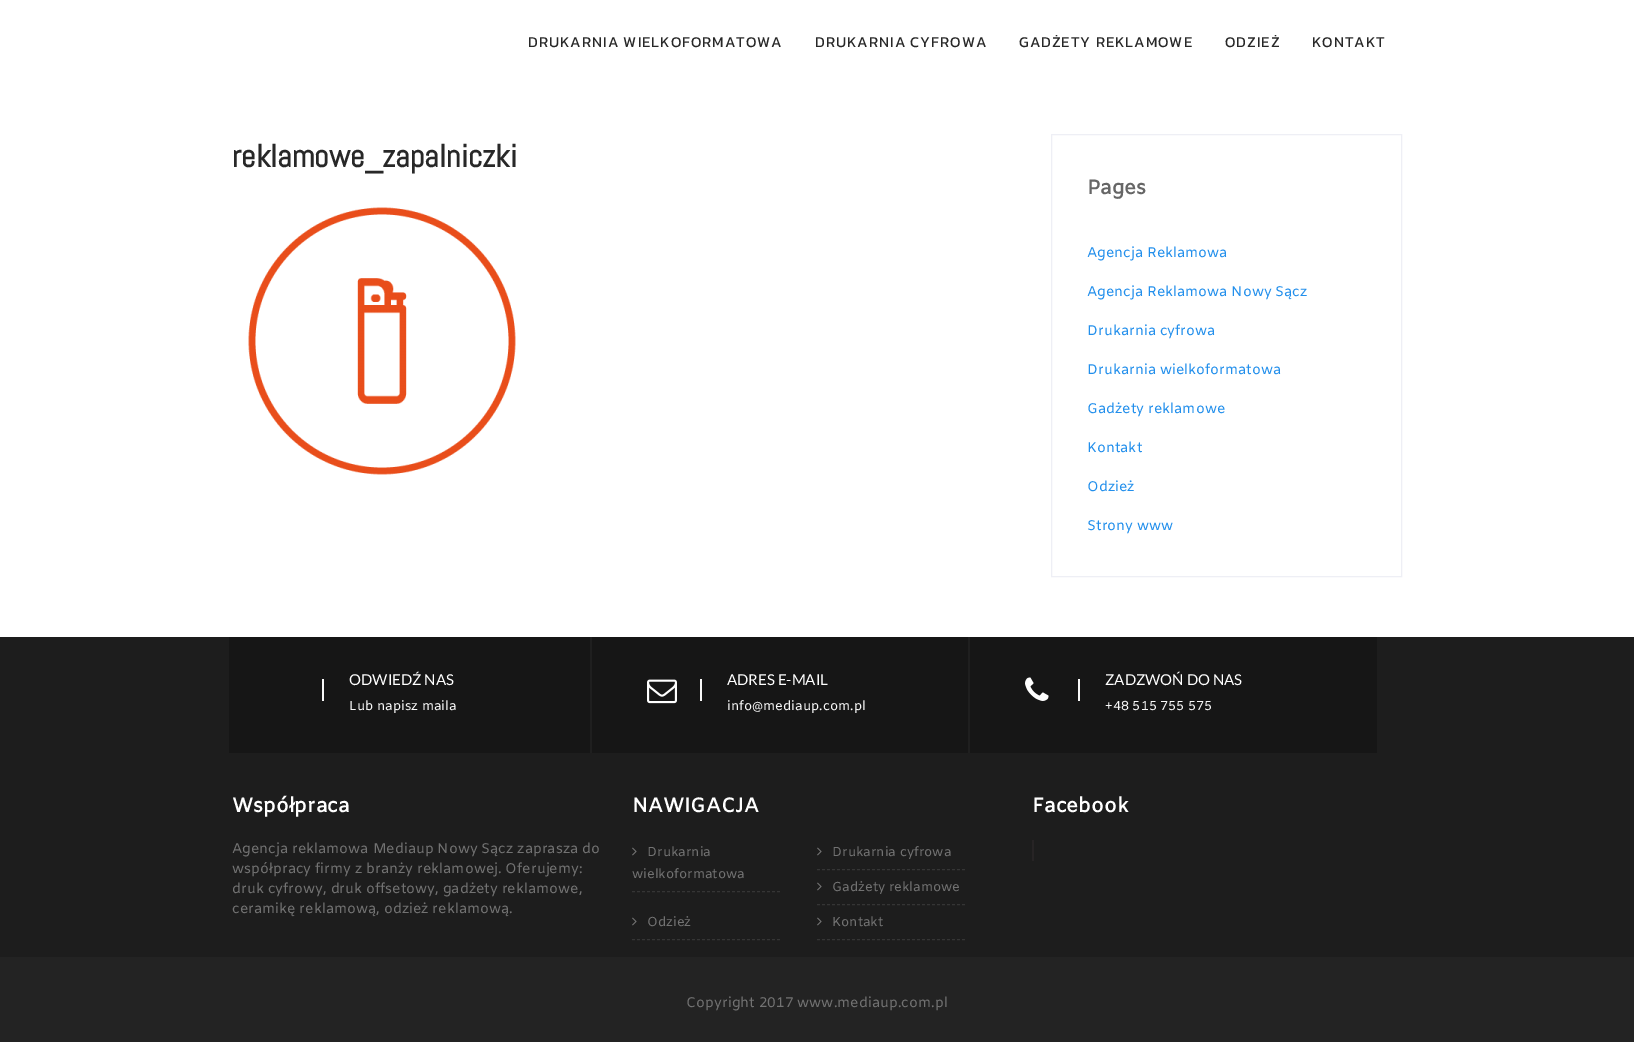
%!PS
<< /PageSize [1634 1042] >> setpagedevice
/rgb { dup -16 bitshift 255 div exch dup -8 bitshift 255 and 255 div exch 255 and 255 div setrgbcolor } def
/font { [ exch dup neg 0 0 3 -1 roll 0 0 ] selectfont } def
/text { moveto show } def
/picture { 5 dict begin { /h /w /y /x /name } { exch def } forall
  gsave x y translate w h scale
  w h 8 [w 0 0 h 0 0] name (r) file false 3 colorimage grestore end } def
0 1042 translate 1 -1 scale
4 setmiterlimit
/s1 { /Abel-Bold 32 font 16#282828 rgb } def
/s2 { /Amiko-Bold 20 font 16#666666 rgb } def
/s3 { /Amiko-Regular 14 font 16#228FEC rgb } def
/s4 { /Lato-Regular 15 font 16#FFFFFF rgb } def
/s5 { /Amiko-Regular 13 font 16#F8F8F8 rgb } def
/s6 { /Amiko-Bold 20 font 16#FFFFFF rgb } def
/s7 { /Amiko-Regular 14 font 16#727272 rgb } def
/s8 { /Amiko-Regular 13 font 16#727272 rgb } def
16#FFFFFF rgb
0 0 1634 1042 rectfill
/Kanit-Regular 15 font
16#282828 rgb
528 47 moveto 1 0 (DRUKARNIA WIELKOFORMATOWA) ashow
815 47 moveto 1 0 (DRUKARNIA CYFROWA) ashow
1019 47 moveto 1 0 (GADŻETY REKLAMOWE) ashow
1225 47 moveto 1 0 (ODZIEŻ) ashow
1312 47 moveto 1 0 (KONTAKT) ashow
s1
(reklamowe_zapalniczki) 232 167 text
(pic1.raw) 248 207 268 268 picture
16#EEEFF5 rgb
1051.5 134.5 350 442 rectstroke
s2
(Pages) 1087 194 text
s3
(Agencja Reklamowa) 1087 257 text
(Agencja Reklamowa Nowy Sącz) 1087 296 text
(Drukarnia cyfrowa) 1087 335 text
(Drukarnia wielkoformatowa) 1087 374 text
(Gadżety reklamowe) 1087 413 text
(Kontakt) 1087 452 text
(Odzież) 1087 491 text
(Strony www) 1087 530 text
16#1D1D1D rgb
0 637 1634 320 rectfill
16#161616 rgb
229 637 1148 116 rectfill
16#1F1F1F rgb
590 637 2 116 rectfill
16#F8F8F8 rgb
322 679 2 22 rectfill
s4
(ODWIEDŹ NAS) 349 685 text
s5
(Lub napisz maila) 349 710 text
16#1F1F1F rgb
968 637 2 116 rectfill
(pic2.raw) 647 679 30 25 picture
16#F8F8F8 rgb
700 679 2 22 rectfill
s4
(ADRES E-MAIL) 727 685 text
s5
(info@mediaup.com.pl) 727 710 text
(pic3.raw) 1025 677 24 24 picture
1078 679 2 22 rectfill
s4
(ZADZWOŃ DO NAS) 1105 685 text
s5
(+48 515 755 575) 1105 710 text
s6
(Współpraca) 232 812 text
s7
(Agencja reklamowa Mediaup Nowy Sącz zaprasza do) 232 853 text
(współpracy firmy z branży reklamowej. Oferujemy:) 232 873 text
(druk cyfrowy, druk offsetowy, gadżety reklamowe,) 232 893 text
(ceramikę reklamową, odzież reklamową.) 232 913 text
s6
(NAWIGACJA) 632 812 text
16#353535 rgb
[3 2] 0 setdash
632 891.5 moveto 780 891.5 lineto stroke
(pic4.raw) 632 847 5 9 picture
s8
(Drukarnia) 647 856 text
(wielkoformatowa) 632 878 text
16#353535 rgb
817 869.5 moveto 965 869.5 lineto stroke
(pic4.raw) 817 847 5 9 picture
s8
(Drukarnia cyfrowa) 832 856 text
16#353535 rgb
817 904.5 moveto 965 904.5 lineto stroke
(pic4.raw) 817 882 5 9 picture
s8
(Gadżety reklamowe) 832 891 text
16#353535 rgb
632 939.5 moveto 780 939.5 lineto stroke
(pic4.raw) 632 917 5 9 picture
s8
(Odzież) 647 926 text
16#353535 rgb
817 939.5 moveto 965 939.5 lineto stroke
(pic4.raw) 817 917 5 9 picture
s8
(Kontakt) 832 926 text
s6
(Facebook) 1032 812 text
16#272425 rgb
1032 840 2 21 rectfill
16#232323 rgb
0 957 1634 85 rectfill
s7
(Copyright 2017 www.mediaup.com.pl) 686 1007 text
showpage
